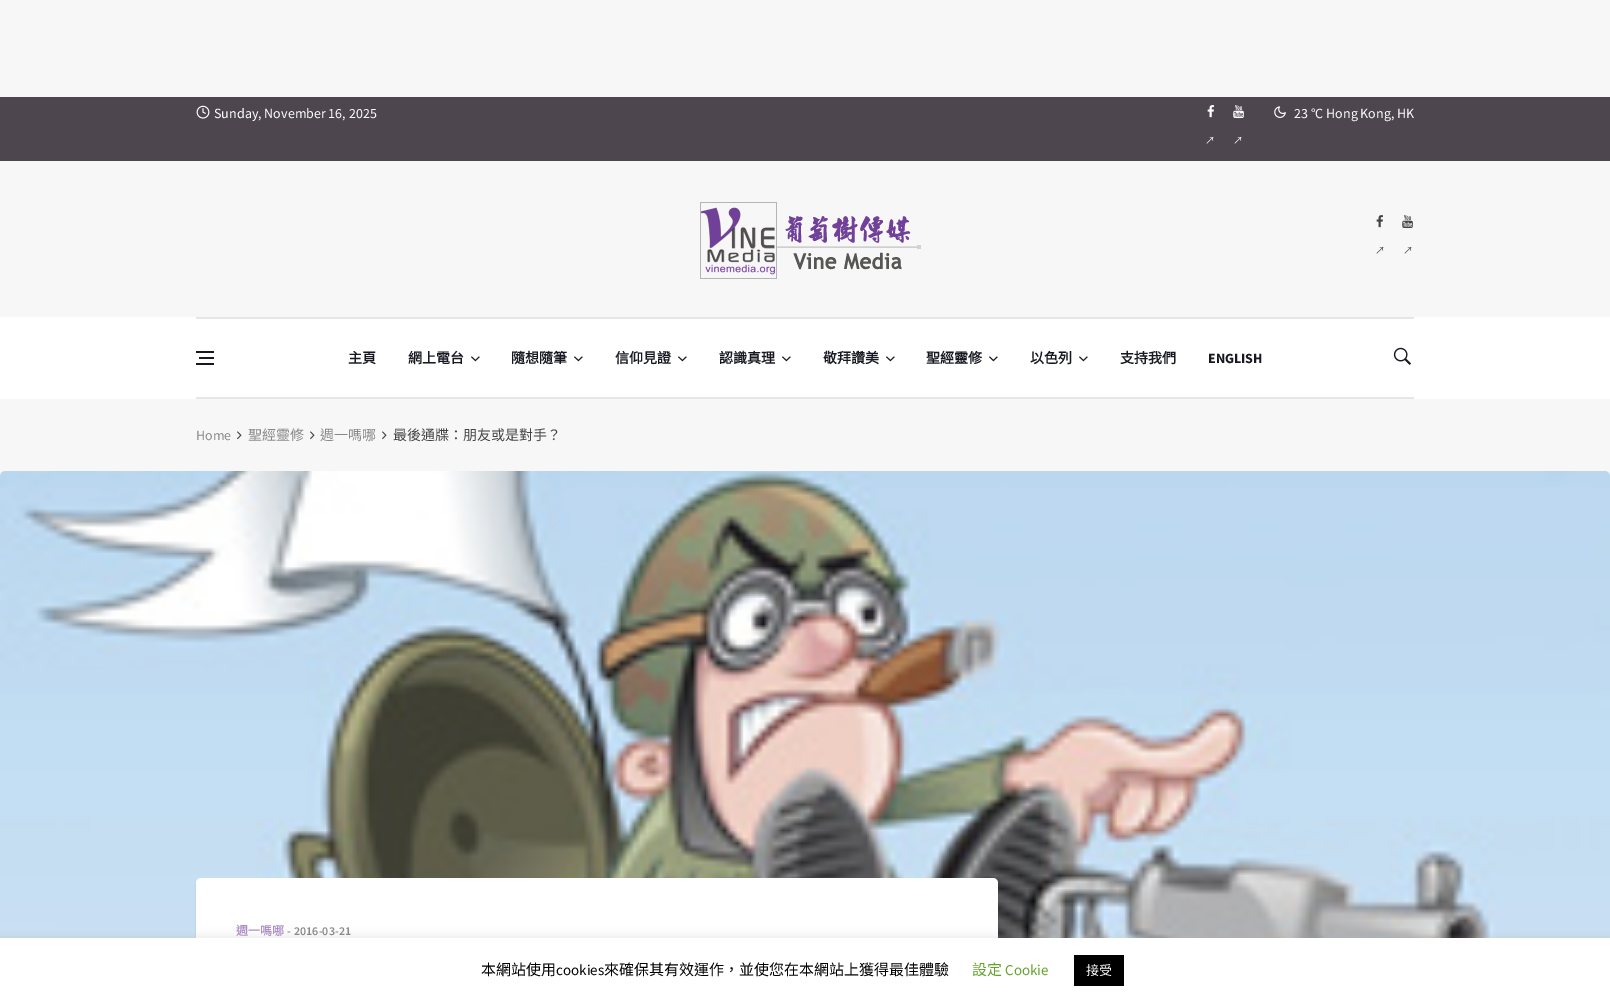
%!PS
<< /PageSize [1610 1003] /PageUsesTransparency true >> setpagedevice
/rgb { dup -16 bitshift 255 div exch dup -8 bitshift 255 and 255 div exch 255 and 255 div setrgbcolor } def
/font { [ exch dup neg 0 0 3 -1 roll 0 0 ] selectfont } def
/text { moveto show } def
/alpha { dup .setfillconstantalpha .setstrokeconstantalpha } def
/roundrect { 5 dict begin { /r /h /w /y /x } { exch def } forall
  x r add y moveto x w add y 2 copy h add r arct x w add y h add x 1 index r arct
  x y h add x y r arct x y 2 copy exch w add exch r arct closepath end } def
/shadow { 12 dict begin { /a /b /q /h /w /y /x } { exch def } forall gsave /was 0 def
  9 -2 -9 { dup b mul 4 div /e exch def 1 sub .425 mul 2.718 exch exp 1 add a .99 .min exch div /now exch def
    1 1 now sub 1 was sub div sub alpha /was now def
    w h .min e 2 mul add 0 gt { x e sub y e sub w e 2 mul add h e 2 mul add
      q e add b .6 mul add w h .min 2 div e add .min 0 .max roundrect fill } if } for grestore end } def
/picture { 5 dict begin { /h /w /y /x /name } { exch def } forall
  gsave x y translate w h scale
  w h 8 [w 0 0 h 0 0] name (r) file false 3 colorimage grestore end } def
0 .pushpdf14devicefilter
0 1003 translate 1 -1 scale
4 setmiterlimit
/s1 { /SourceSansPro-Regular 14 font 16#FFFFFF rgb } def
/s2 { /NotoSansCJKTC-Regular 10 font 16#FFFFFF rgb } def
/s3 { /NotoSansCJKTC-Regular 10 font 16#444444 rgb } def
/s4 { /NotoSansCJKTC-Bold 14 font 16#171821 rgb } def
/s5 { /SourceSansPro-Bold 14 font 16#171821 rgb } def
/s6 { /SourceSansPro-Regular 14 font 16#888888 rgb } def
/s7 { /NotoSansCJKTC-Regular 14 font 16#888888 rgb } def
/s8 { /NotoSansCJKTC-Regular 14 font 16#444444 rgb } def
/s9 { /NotoSansCJKTC-Bold 12 font 16#AF8FC7 rgb } def
/s10 { /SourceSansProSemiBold-SemiBold 12 font 16#888888 rgb } def
/s11 { /NotoSansCJKTC-Regular 15 font 16#000000 rgb } def
/s12 { /SourceSansPro-Regular 15 font 16#000000 rgb } def
/s13 { /NotoSansCJKTC-Regular 15 font 16#62A329 rgb } def
/s14 { /SourceSansPro-Regular 15 font 16#62A329 rgb } def
/s15 { /NotoSansCJKTC-Regular 13 font 16#FFFFFF rgb } def
16#F7F7F7 rgb
0 0 1610 1003 rectfill
16#4D464F rgb
0 97 1610 64 rectfill
(pic1.raw) 196 105 14 14 picture
s1
(Sunday, November 16, 2025) 214 118 text
(pic2.raw) 1274 106 12 12 picture
(23 °C Hong Kong, HK) 1294 118 text
(pic3.raw) 1207 105 7 13 picture
s2
(↗) 1205 144 text
(pic4.raw) 1233 105 11 14 picture
(↗) 1233 144 text
(pic5.raw) 700 202 221 77 picture
(pic6.raw) 1376 215 7 13 picture
s3
(↗) 1375 254 text
(pic7.raw) 1402 215 11 14 picture
(↗) 1403 254 text
16#FFFFFF rgb
0 317 1610 82 rectfill
16#E6E6E6 rgb
196 317 1218 2 rectfill
16#171821 rgb
199 357 15 2 rectfill
196 351 18 2 rectfill
196 363 18 2 rectfill
s4
(主頁) 348 363 text
(網上電台) 408 363 text
(pic8.raw) 471 356 9 6 picture
(隨想隨筆) 511 363 text
(pic8.raw) 574 356 9 6 picture
(信仰見證) 615 363 text
(pic8.raw) 678 356 9 6 picture
(認識真理) 719 363 text
(pic8.raw) 782 356 9 6 picture
(敬拜讚美) 823 363 text
(pic8.raw) 886 356 9 6 picture
(聖經靈修) 926 363 text
(pic8.raw) 989 356 9 6 picture
(以色列) 1030 363 text
(pic8.raw) 1079 356 9 6 picture
(支持我們) 1120 363 text
s5
(ENGLISH) 1208 363 text
(pic9.raw) 1393 347 18 18 picture
16#E6E6E6 rgb
196 397 1218 2 rectfill
s6
(Home) 196 440 text
(pic10.raw) 237 431 5 9 picture
s7
(聖經靈修) 248 440 text
(pic10.raw) 310 431 5 9 picture
(週一嗎哪) 320 440 text
(pic10.raw) 382 431 5 9 picture
s8
(最後通牒：朋友或是對手？) 393 440 text
(pic11.raw) 0 471 1610 467 picture
16#000000 rgb
196 880 802 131 5 1 0.08 shadow
16#FFFFFF rgb
196 878 802 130 5 roundrect fill
s9
(週一嗎哪) 236 935 text
s10
(-) 287 935 text
(2016-03-21) 294 935 text
16#ACABAB rgb
0 937 1610 65 0 5 0.3 shadow
16#FFFFFF rgb
0 938 1610 65 rectfill
s11
(本網站使用) 481 975 text
s12
(cookies) 556 975 text
s11
(來確保其有效運作，並使您在本網站上獲得最佳體驗) 604 975 text
s13
(設定) 972 975 text
s14
(Cookie) 1005 975 text
16#000000 rgb
1074 955 50 31 rectfill
s15
(接受) 1086 975 text
.poppdf14devicefilter showpage
